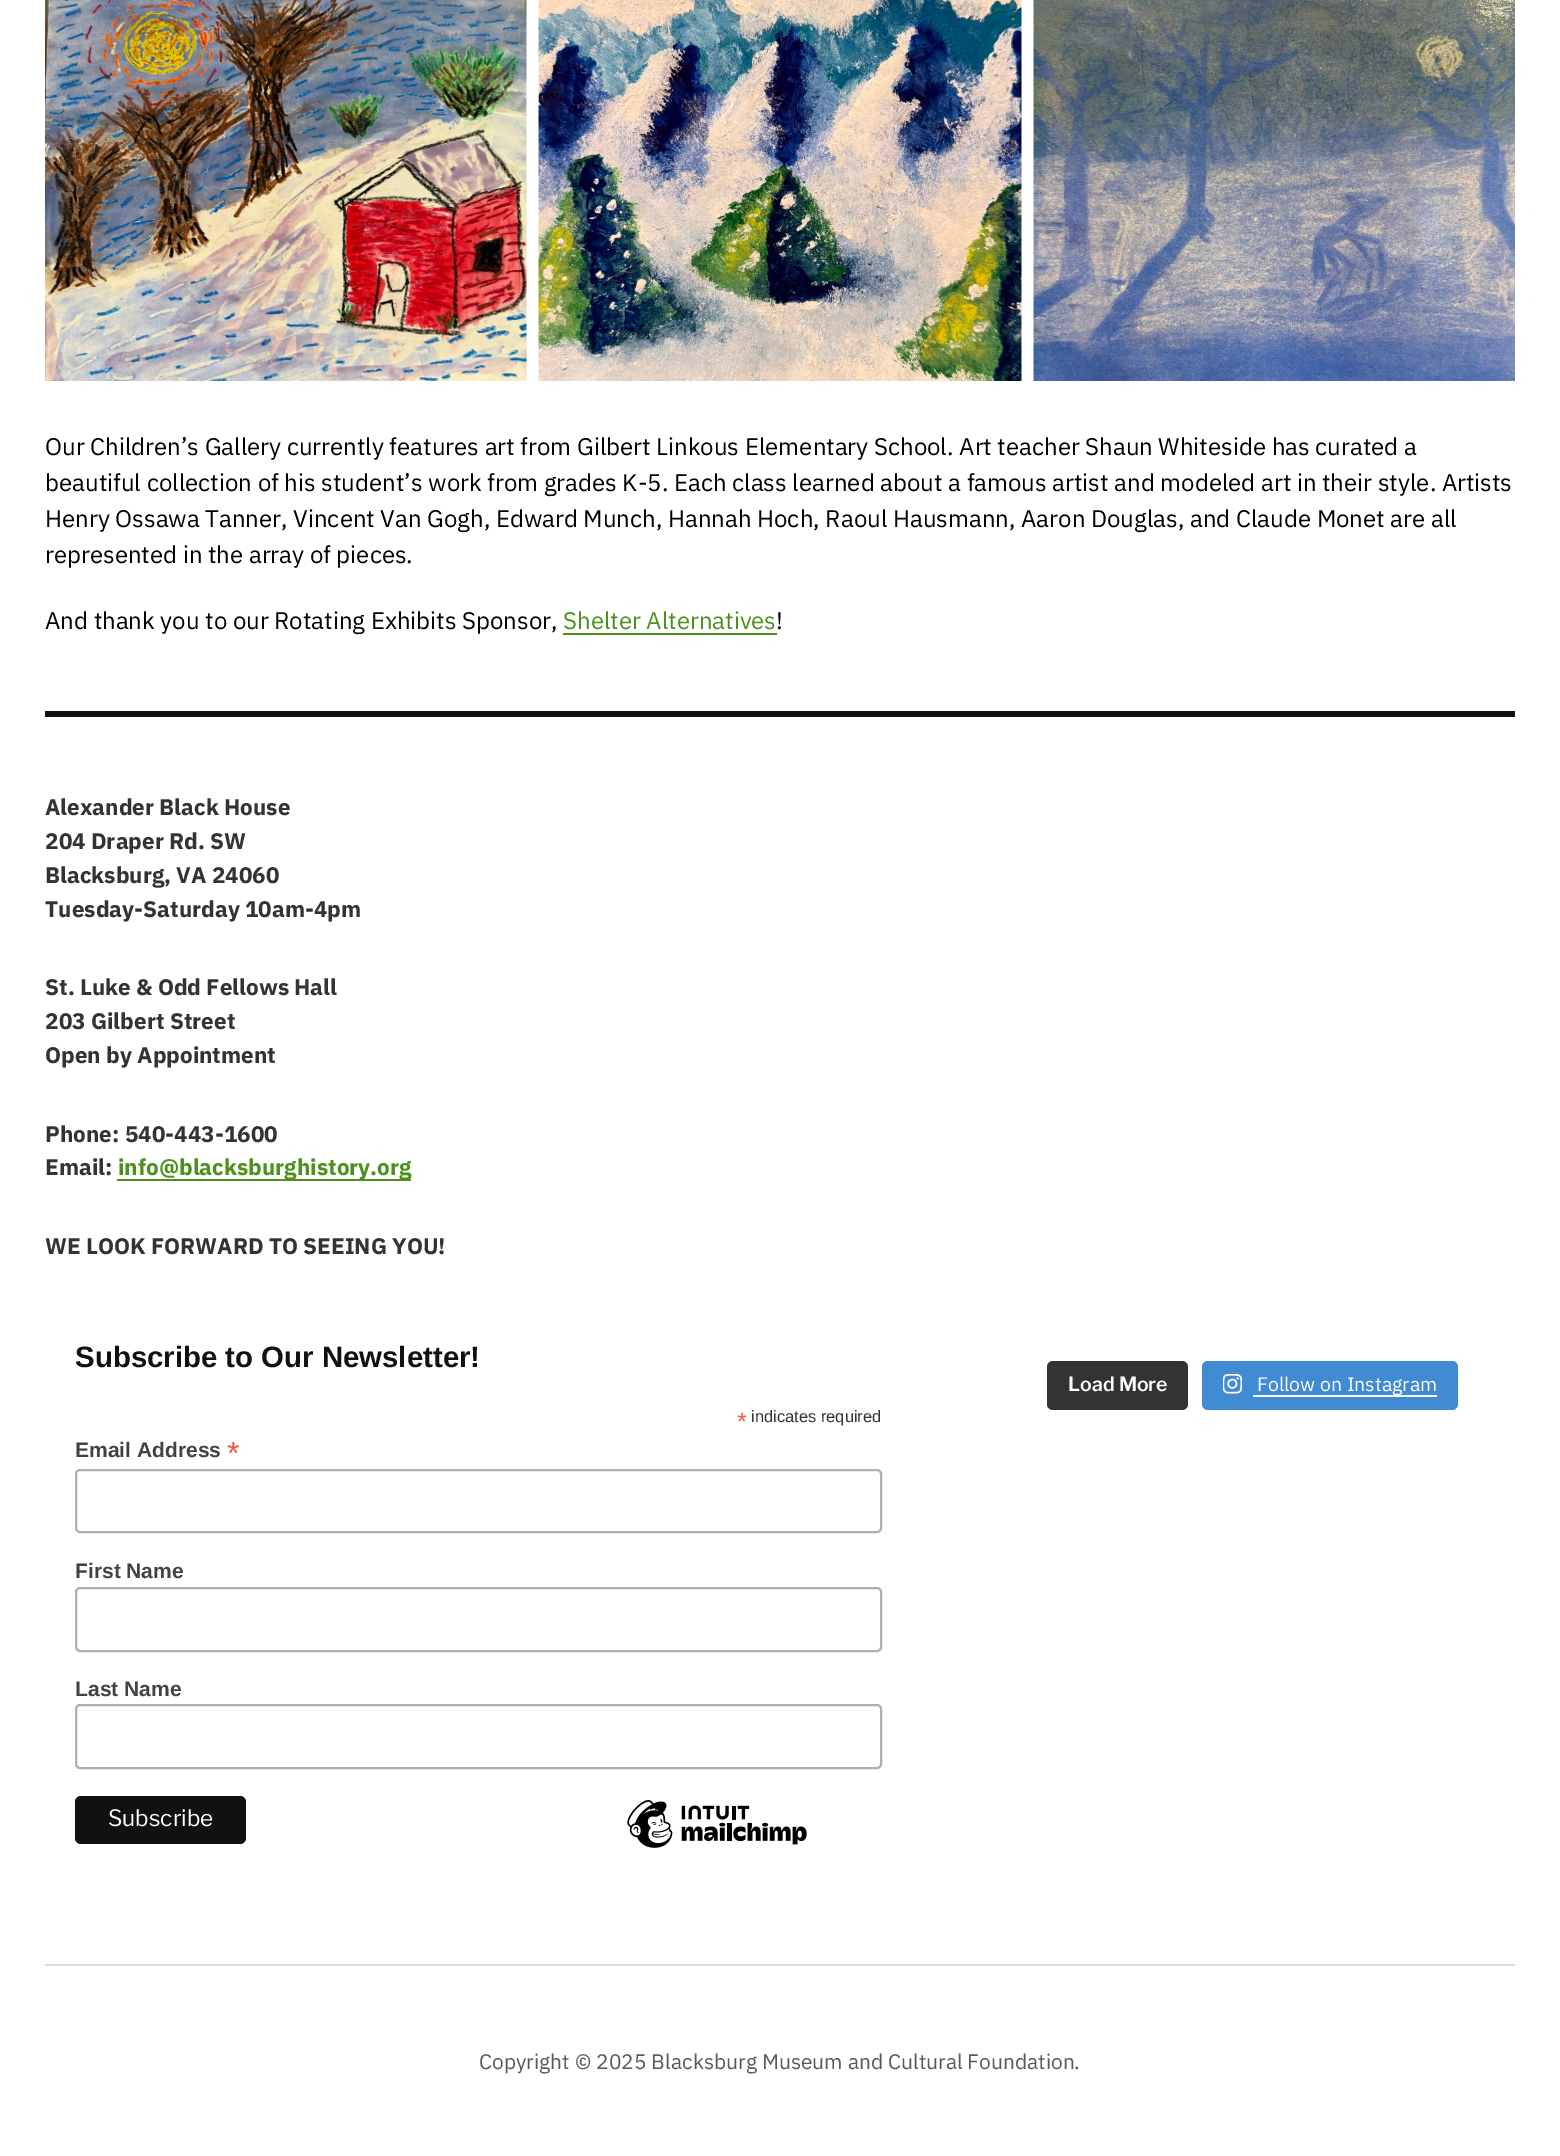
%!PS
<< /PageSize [1560 2156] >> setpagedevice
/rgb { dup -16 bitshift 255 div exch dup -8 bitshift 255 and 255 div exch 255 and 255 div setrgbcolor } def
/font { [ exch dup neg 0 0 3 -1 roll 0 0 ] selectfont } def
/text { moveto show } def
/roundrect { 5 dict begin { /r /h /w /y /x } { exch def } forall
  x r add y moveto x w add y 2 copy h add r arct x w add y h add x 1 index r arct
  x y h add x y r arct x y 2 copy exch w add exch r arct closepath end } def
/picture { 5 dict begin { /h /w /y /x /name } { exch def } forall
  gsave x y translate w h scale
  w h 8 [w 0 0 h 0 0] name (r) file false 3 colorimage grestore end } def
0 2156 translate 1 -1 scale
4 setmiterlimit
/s1 { /IBMPlexSans-Regular 24 font 16#000000 rgb } def
/s2 { /IBMPlexSans-Regular 24 font 16#4D911D rgb } def
/s3 { /IBMPlexSans-Bold 22.5 font 16#333333 rgb } def
/s4 { /IBMPlexSans-Bold 22.5 font 16#4D911D rgb } def
/s5 { /LiberationSans-Bold 29.4 font 16#111111 rgb } def
/s6 { /LiberationSans-Regular 25 font 16#E85C41 rgb } def
/s7 { /LiberationSans-Regular 16.5 font 16#333333 rgb } def
/s8 { /LiberationSans-Bold 21 font 16#424242 rgb } def
/s9 { /LiberationSans-Regular 32 font 16#E85C41 rgb } def
/s10 { /LibreFranklin-Regular 22.5 font 16#FFFFFF rgb } def
/s11 { /LibreFranklin-SemiBold 19.5 font 16#FFFFFF rgb } def
/s12 { /IBMPlexSans-Regular 19.5 font 16#FFFFFF rgb } def
/s13 { /IBMPlexSans-Regular 21 font 16#595959 rgb } def
16#FFFFFF rgb
0 0 1560 2156 rectfill
(pic1.raw) 45 0 482 381 picture
(pic2.raw) 538 0 484 381 picture
(pic3.raw) 1033 0 482 381 picture
s1
(Our Children’s Gallery currently features art from Gilbert Linkous Elementary School. Art teacher Shaun Whiteside has curated a) 45 455 text
(beautiful collection of his student’s work from grades K-5. Each class learned about a famous artist and modeled art in their style. Artists) 45 491 text
(Henry Ossawa Tanner, Vincent Van Gogh, Edward Munch, Hannah Hoch, Raoul Hausmann, Aaron Douglas, and Claude Monet are all) 45 527 text
(represented in the array of pieces.) 45 563 text
(And thank you to our Rotating Exhibits Sponsor,) 45 629 text
s2
(Shelter Alternatives) 563 629 text
563 633 214 2 rectfill
s1
(!) 776 629 text
16#111111 rgb
45 711 1470 6 rectfill
s3
(Alexander Black House) 45 815 text
(204 Draper Rd. SW) 45 849 text
(Blacksburg, VA 24060) 45 883 text
(Tuesday-Saturday 10am-4pm) 45 917 text
(St. Luke & Odd Fellows Hall) 45 995 text
(203 Gilbert Street) 45 1029 text
(Open by Appointment) 45 1063 text
(Phone: 540-443-1600) 45 1142 text
(Email:) 45 1175 text
16#4D911D rgb
117 1179 294 2 rectfill
(info@blacksburghistory.org) 118 1175 text
s3
(WE LOOK FORWARD TO SEEING YOU!) 45 1254 text
s5
(Subscribe to Our Newsletter!) 75 1367 text
s6
(*) 737 1430 text
s7
(indicates required) 751 1422 text
s8
(Email Address) 75 1457 text
s9
(*) 227 1464 text
16#ABB0B2 rgb
2 setlinewidth
76 1470 805 62 4 roundrect stroke
s8
(First Name) 75 1578 text
16#ABB0B2 rgb
76 1588 805 63 4 roundrect stroke
s8
(Last Name) 75 1696 text
16#ABB0B2 rgb
76 1705 805 63 4 roundrect stroke
16#111111 rgb
75 1796 171 48 6 roundrect fill
s10
(Subscribe) 108 1826 text
(pic4.raw) 627 1800 180 48 picture
16#333333 rgb
1047 1361 141 49 6 roundrect fill
s11
(Load More) 1068 1391 text
16#408BD1 rgb
1202 1361 256 49 6 roundrect fill
(pic5.raw) 1223 1374 19 20 picture
16#FFFFFF rgb
1253 1395 184 2 rectfill
s12
(Follow on Instagram) 1257 1391 text
16#DDDDDD rgb
45 1964 1470 2 rectfill
s13
(Copyright © 2025 Blacksburg Museum and Cultural Foundation.) 479 2069 text
showpage
